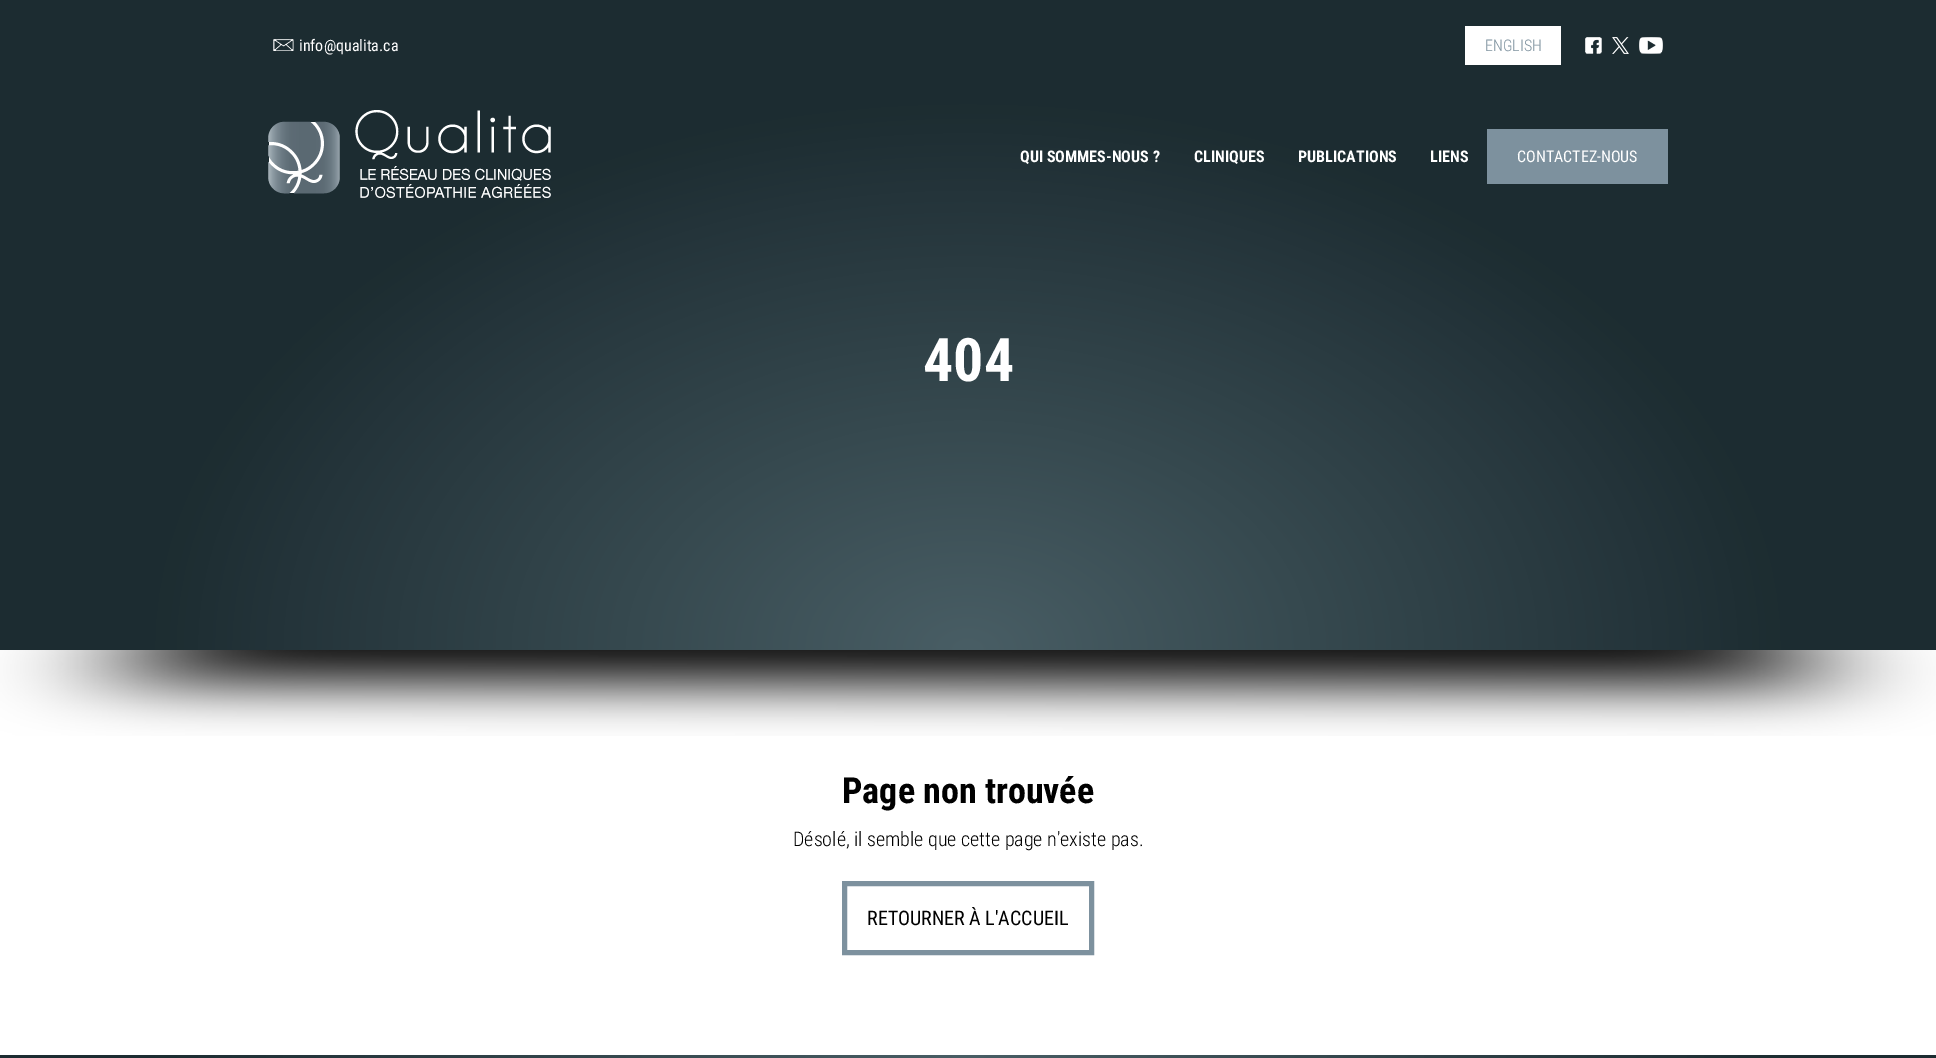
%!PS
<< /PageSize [1936 1058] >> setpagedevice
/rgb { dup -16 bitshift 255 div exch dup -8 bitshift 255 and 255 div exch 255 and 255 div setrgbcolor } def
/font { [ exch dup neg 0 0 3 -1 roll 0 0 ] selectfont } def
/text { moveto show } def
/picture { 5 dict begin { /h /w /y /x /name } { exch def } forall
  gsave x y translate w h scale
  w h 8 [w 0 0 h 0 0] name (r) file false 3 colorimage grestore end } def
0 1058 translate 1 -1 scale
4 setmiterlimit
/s1 { /RobotoCondensed-Regular 16 font 16#FFFFFF rgb } def
/s2 { /RobotoCondensed-Light 16 font 16#7D919E rgb } def
/s3 { /RobotoCondensed-Bold 16 font 16#FFFFFF rgb } def
/s4 { /RobotoCondensed-Bold 60 font 16#FFFFFF rgb } def
/s5 { /RobotoCondensed-Bold 36 font 16#000000 rgb } def
/s6 { /RobotoCondensed-Light 20 font 16#000000 rgb } def
/s7 { /RobotoCondensed-Regular 20 font 16#000000 rgb } def
16#FFFFFF rgb
0 0 1936 1058 rectfill
gsave 0 0 moveto 1936 0 lineto 1936 650 lineto 0 650 lineto closepath clip newpath 968 650 translate 1369 919 scale
<< /ShadingType 3 /ColorSpace /DeviceRGB /Coords [0 0 0 0 0 1] /Extend [true true] /Function << /FunctionType 3 /Domain [0 1] /Functions [<< /FunctionType 2 /Domain [0 1] /C0 [0.286 0.369 0.396] /C1 [0.11 0.173 0.192] /N 1 >> << /FunctionType 2 /Domain [0 1] /C0 [0.11 0.173 0.192] /C1 [0.11 0.173 0.192] /N 1 >>] /Bounds [0.6] /Encode [0 1 0 1] >> >> shfill grestore
(pic1.raw) 273 39 21 12 picture
s1
(info@qualita.ca) 299 51 text
1465 26 96 39 rectfill
s2
(ENGLISH) 1485 51 text
(pic2.raw) 1585 37 17 17 picture
(pic3.raw) 1612 37 17 17 picture
(pic4.raw) 1639 37 24 17 picture
(pic5.raw) 268 110 283 88 picture
s3
(QUI SOMMES-NOUS ?) 1020 162 text
(CLINIQUES) 1194 162 text
(PUBLICATIONS) 1298 162 text
(LIENS) 1430 162 text
16#7D919E rgb
1487 129 181 55 rectfill
s1
(CONTACTEZ-NOUS) 1517 162 text
s4
(404) 923 381 text
(pic6.raw) 0 650 1936 86 picture
s5
(Page non trouvée) 842 803 text
s6
(Désolé, il semble que cette page n'existe pas.) 793 846 text
16#7D919E rgb
5 setlinewidth
844.5 883.5 247 69 rectstroke
s7
(RETOURNER À L'ACCUEIL) 867 925 text
gsave 0 1055 moveto 1936 1055 lineto 1936 1058 lineto 0 1058 lineto closepath clip newpath 968 1055 translate 1369 875 scale
<< /ShadingType 3 /ColorSpace /DeviceRGB /Coords [0 0 0 0 0 1] /Extend [true true] /Function << /FunctionType 3 /Domain [0 1] /Functions [<< /FunctionType 2 /Domain [0 1] /C0 [0.286 0.369 0.396] /C1 [0.11 0.173 0.192] /N 1 >> << /FunctionType 2 /Domain [0 1] /C0 [0.11 0.173 0.192] /C1 [0.11 0.173 0.192] /N 1 >>] /Bounds [0.6] /Encode [0 1 0 1] >> >> shfill grestore
showpage
